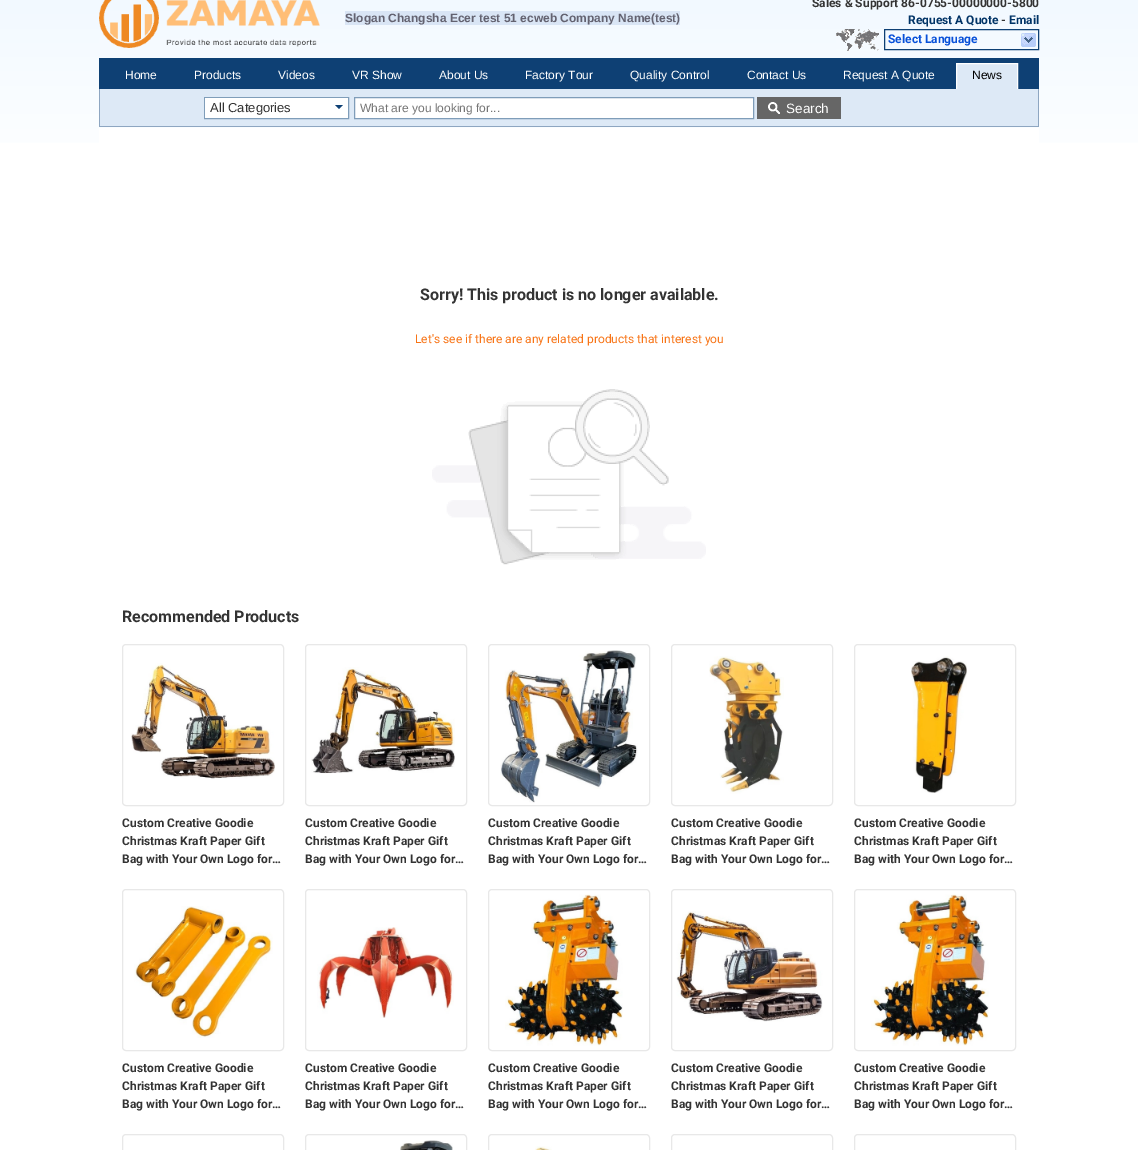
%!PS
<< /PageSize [1138 1150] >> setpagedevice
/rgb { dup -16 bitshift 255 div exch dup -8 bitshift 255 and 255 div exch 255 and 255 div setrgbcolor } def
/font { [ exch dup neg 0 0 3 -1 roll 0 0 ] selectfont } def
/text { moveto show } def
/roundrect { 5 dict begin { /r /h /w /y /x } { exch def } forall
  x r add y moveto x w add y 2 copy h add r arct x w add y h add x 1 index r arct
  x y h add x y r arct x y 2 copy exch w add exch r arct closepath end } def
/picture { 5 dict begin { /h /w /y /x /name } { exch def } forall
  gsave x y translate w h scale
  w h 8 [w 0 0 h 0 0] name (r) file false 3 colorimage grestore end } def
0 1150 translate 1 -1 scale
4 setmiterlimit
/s1 { /LiberationSans-Bold 12 font 16#636270 rgb } def
/s2 { /Roboto-Bold 12 font 16#333333 rgb } def
/s3 { /Roboto-Bold 12 font 16#003366 rgb } def
/s4 { /Roboto-Bold 12 font 16#0750D9 rgb } def
/s5 { /LiberationSans-Regular 12 font 16#FFFFFF rgb } def
/s6 { /LiberationSans-Regular 12 font 16#000000 rgb } def
/s7 { /LiberationSans-Regular 13 font 16#333333 rgb } def
/s8 { /LiberationSans-Regular 12 font 16#757575 rgb } def
/s9 { /LiberationSans-Regular 13.5 font 16#FFFFFF rgb } def
/s10 { /Roboto-Bold 16 font 16#333333 rgb } def
/s11 { /Roboto-Regular 12 font 16#F87416 rgb } def
16#FFFFFF rgb
0 0 1138 1150 rectfill
gsave 0 0 moveto 1138 0 lineto 1138 143 lineto 0 143 lineto closepath clip newpath
<< /ShadingType 2 /ColorSpace /DeviceRGB /Coords [569 -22 569 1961] /Extend [true true] /Function << /FunctionType 3 /Domain [0 1] /Functions [<< /FunctionType 2 /Domain [0 1] /C0 [0.941 0.973 1] /C1 [1 1 1] /N 1 >> << /FunctionType 2 /Domain [0 1] /C0 [1 1 1] /C1 [1 1 1] /N 1 >>] /Bounds [0.1] /Encode [0 1 0 1] >> >> shfill grestore
(pic1.raw) 99 0 221 48 picture
16#D9E5F5 rgb
345 11 335 14 rectfill
s1
(Slogan Changsha Ecer test 51 ecweb Company Name\(test\)) 345 22 text
s2
(Sales & Support 86-0755-00000000-5800) 812 7 text
s3
(Request A Quote) 908 24 text
s2
(-) 1001 24 text
s3
(Email) 1009 24 text
(pic2.raw) 836 29 43 22 picture
16#0E4074 rgb
884.5 29.5 154 20 rectstroke
s4
(Select Language) 888 43 text
(pic3.raw) 1021 33 15 14 picture
16#8EA6C1 rgb
1038 88 1 39 rectfill
99 126 940 1 rectfill
99 88 1 39 rectfill
16#0E4074 rgb
99 58 940 31 rectfill
s5
(Home) 125 79 text
(Products) 194 79 text
(Videos) 278 79 text
(VR Show) 352 79 text
(About Us) 439 79 text
(Factory Tour) 525 79 text
(Quality Control) 630 79 text
(Contact Us) 747 79 text
(Request A Quote) 843 79 text
16#DDE9F6 rgb
957 64 60 25 rectfill
100 89 938 37 rectfill
gsave
99 58 940 31 rectclip
16#FFFFFF rgb
956.5 63.5 61 39 rectstroke
grestore
s6
(News) 972 79 text
16#7F9DB9 rgb
204.5 97.5 144 21 rectstroke
16#FFFFFF rgb
205 98 143 20 rectfill
s7
(All Categories) 210 112 text
16#0E4074 rgb
335 105 moveto 343 105 lineto 339 109 lineto closepath fill
16#FFFFFF rgb
354.5 97.5 moveto 753.5 97.5 lineto 753.5 118.5 lineto 354.5 118.5 lineto closepath gsave fill grestore
16#7F9DB9 rgb
stroke
s8
(What are you looking for...) 360 112 text
16#666666 rgb
757 97 84 22 rectfill
(pic4.raw) 768 102 12 12 picture
s9
(Search) 786 113 text
99 128 940 15 rectfill
s10
(Sorry! This product is no longer available.) 420 300 text
s11
(Let's see if there are any related products that interest you) 415 343 text
(pic5.raw) 432 389 274 176 picture
s10
(Recommended Products) 122 622 text
16#E8E8E8 rgb
122.5 644.5 161 161 3.5 roundrect stroke
(pic6.raw) 131 663 144 116 picture
s2
(Custom Creative Goodie) 122 827 text
(Christmas Kraft Paper Gift) 122 845 text
(Bag with Your Own Logo for…) 122 863 text
16#E8E8E8 rgb
305.5 644.5 161 161 3.5 roundrect stroke
(pic7.raw) 311 667 144 107 picture
s2
(Custom Creative Goodie) 305 827 text
(Christmas Kraft Paper Gift) 305 845 text
(Bag with Your Own Logo for…) 305 863 text
16#E8E8E8 rgb
488.5 644.5 161 161 3.5 roundrect stroke
(pic8.raw) 500 650 138 153 picture
s2
(Custom Creative Goodie) 488 827 text
(Christmas Kraft Paper Gift) 488 845 text
(Bag with Your Own Logo for…) 488 863 text
16#E8E8E8 rgb
671.5 644.5 161 161 3.5 roundrect stroke
(pic9.raw) 709 656 75 138 picture
s2
(Custom Creative Goodie) 671 827 text
(Christmas Kraft Paper Gift) 671 845 text
(Bag with Your Own Logo for…) 671 863 text
16#E8E8E8 rgb
854.5 644.5 161 161 3.5 roundrect stroke
(pic10.raw) 911 656 56 137 picture
s2
(Custom Creative Goodie) 854 827 text
(Christmas Kraft Paper Gift) 854 845 text
(Bag with Your Own Logo for…) 854 863 text
16#E8E8E8 rgb
122.5 889.5 161 161 3.5 roundrect stroke
(pic11.raw) 134 906 139 132 picture
s2
(Custom Creative Goodie) 122 1072 text
(Christmas Kraft Paper Gift) 122 1090 text
(Bag with Your Own Logo for…) 122 1108 text
16#E8E8E8 rgb
305.5 889.5 161 161 3.5 roundrect stroke
(pic12.raw) 317 927 137 91 picture
s2
(Custom Creative Goodie) 305 1072 text
(Christmas Kraft Paper Gift) 305 1090 text
(Bag with Your Own Logo for…) 305 1108 text
16#E8E8E8 rgb
488.5 889.5 161 161 3.5 roundrect stroke
(pic13.raw) 505 894 118 152 picture
s2
(Custom Creative Goodie) 488 1072 text
(Christmas Kraft Paper Gift) 488 1090 text
(Bag with Your Own Logo for…) 488 1108 text
16#E8E8E8 rgb
671.5 889.5 161 161 3.5 roundrect stroke
(pic14.raw) 676 911 147 111 picture
s2
(Custom Creative Goodie) 671 1072 text
(Christmas Kraft Paper Gift) 671 1090 text
(Bag with Your Own Logo for…) 671 1108 text
16#E8E8E8 rgb
854.5 889.5 161 161 3.5 roundrect stroke
(pic13.raw) 871 894 118 152 picture
s2
(Custom Creative Goodie) 854 1072 text
(Christmas Kraft Paper Gift) 854 1090 text
(Bag with Your Own Logo for…) 854 1108 text
16#E8E8E8 rgb
122.5 1134.5 161 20 3.5 roundrect stroke
305.5 1134.5 161 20 3.5 roundrect stroke
(pic15.raw) 400 1140 53 10 picture
488.5 1134.5 161 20 3.5 roundrect stroke
(pic16.raw) 535 1146 17 4 picture
671.5 1134.5 161 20 3.5 roundrect stroke
854.5 1134.5 161 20 3.5 roundrect stroke
showpage
